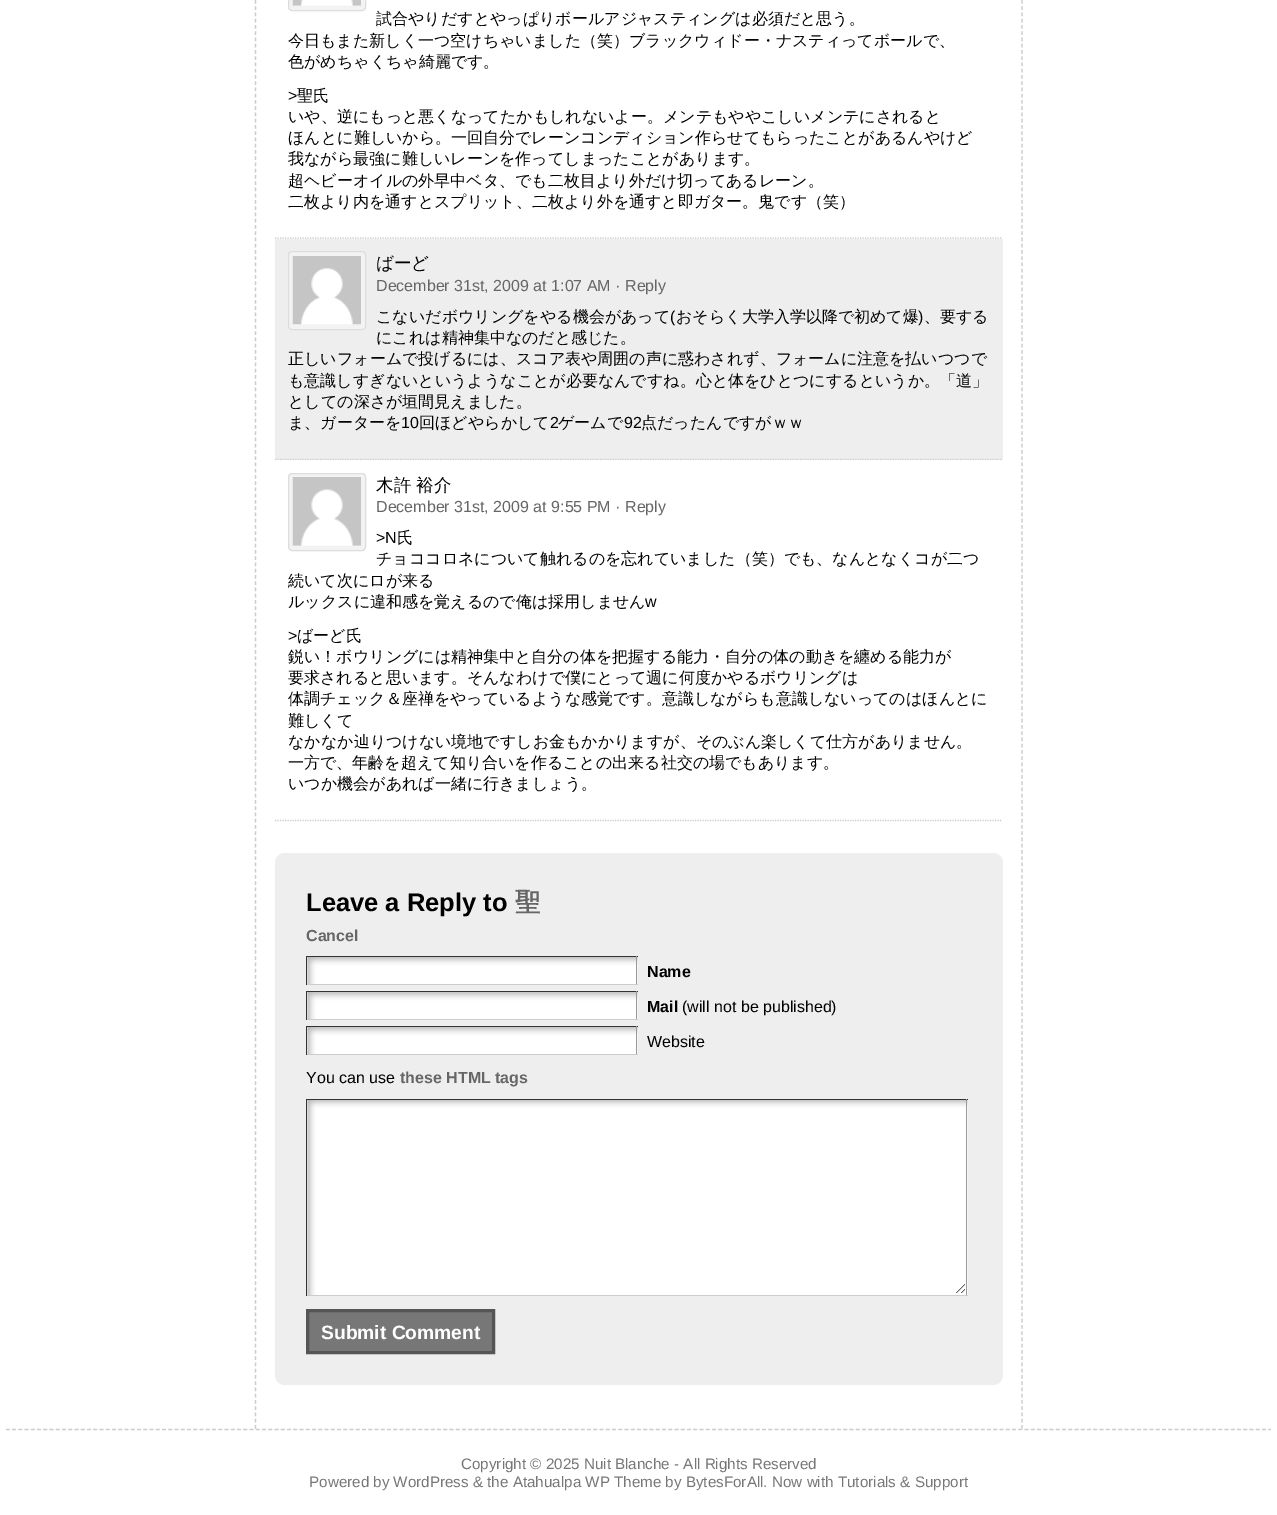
%!PS
<< /PageSize [1277 1515] >> setpagedevice
/rgb { dup -16 bitshift 255 div exch dup -8 bitshift 255 and 255 div exch 255 and 255 div setrgbcolor } def
/font { [ exch dup neg 0 0 3 -1 roll 0 0 ] selectfont } def
/text { moveto show } def
/roundrect { 5 dict begin { /r /h /w /y /x } { exch def } forall
  x r add y moveto x w add y 2 copy h add r arct x w add y h add x 1 index r arct
  x y h add x y r arct x y 2 copy exch w add exch r arct closepath end } def
/picture { 5 dict begin { /h /w /y /x /name } { exch def } forall
  gsave x y translate w h scale
  w h 8 [w 0 0 h 0 0] name (r) file false 3 colorimage grestore end } def
0 1515 translate 1 -1 scale
4 setmiterlimit
/s1 { /WenQuanYiZenHei-Medium 16 font 16#000000 rgb } def
/s2 { /LiberationSans-Regular 16 font 16#000000 rgb } def
/s3 { /WenQuanYiZenHei-Medium 17.5 font 16#000000 rgb } def
/s4 { /LiberationSans-Regular 16 font 16#666666 rgb } def
/s5 { /LiberationSans-Bold 25.5 font 16#000000 rgb } def
/s6 { /WenQuanYiZenHei-Bold 25.5 font 16#666666 rgb } def
/s7 { /LiberationSans-Bold 16 font 16#666666 rgb } def
/s8 { /LiberationSans-Bold 16 font 16#000000 rgb } def
/s9 { /LiberationSans-Bold 19.25 font 16#FFFFFF rgb } def
/s10 { /LiberationSans-Regular 15.2 font 16#777777 rgb } def
16#FFFFFF rgb
0 0 1277 1515 rectfill
16#CCCCCC rgb
1.2 setlinewidth
[3.75 2.5] 0 setdash
255.5 -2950 moveto 255.5 1429 lineto stroke
[1.25 1.25] 0 setdash
275 238 moveto 1002.5 238 lineto stroke
16#F3F3F3 rgb
288.5 -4.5 77 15 3.5 roundrect gsave fill grestore
16#DDDDDD rgb
1 setlinewidth
[] 0 setdash
stroke
(pic1.raw) 292 0 69 6 picture
s1
(試合やりだすとやっぱりボールアジャスティングは必須だと思う。) 376 24 text
(今日もまた新しく一つ空けちゃいました（笑）ブラックウィドー・ナスティってボールで、) 288 46 text
(色がめちゃくちゃ綺麗です。) 288 67 text
s2
(>) 288 101 text
s1
(聖氏) 297 101 text
(いや、逆にもっと悪くなってたかもしれないよー。メンテもややこしいメンテにされると) 288 122 text
(ほんとに難しいから。一回自分でレーンコンディション作らせてもらったことがあるんやけど) 288 143 text
(我ながら最強に難しいレーンを作ってしまったことがあります。) 288 164 text
(超ヘビーオイルの外早中ベタ、でも二枚目より外だけ切ってあるレーン。) 288 186 text
(二枚より内を通すとスプリット、二枚より外を通すと即ガター。鬼です（笑）) 288 207 text
16#EEEEEE rgb
275 239 728 221 rectfill
16#CCCCCC rgb
1.2 setlinewidth
[1.25 1.25] 0 setdash
275 459.5 moveto 1002.5 459.5 lineto stroke
16#F3F3F3 rgb
288.5 251.5 77 78 3.5 roundrect gsave fill grestore
16#DDDDDD rgb
1 setlinewidth
[] 0 setdash
stroke
(pic2.raw) 292 256 69 69 picture
s3
(ばーど) 376 269 text
s4
(December 31st, 2009 at 1:07 AM · Reply) 376 291 text
s1
(こないだボウリングをやる機会があって) 376 322 text
s2
(\() 670 322 text
s1
(おそらく大学入学以降で初めて爆) 676 322 text
s2
(\)) 918 322 text
s1
(、要する) 924 322 text
(にこれは精神集中なのだと感じた。) 376 343 text
(正しいフォームで投げるには、スコア表や周囲の声に惑わされず、フォームに注意を払いつつで) 288 364 text
(も意識しすぎないというようなことが必要なんですね。心と体をひとつにするというか。「道」) 288 386 text
(としての深さが垣間見えました。) 288 407 text
(ま、ガーターを) 288 428 text
s2
(10) 401 428 text
s1
(回ほどやらかして) 419 428 text
s2
(2) 550 428 text
s1
(ゲームで) 558 428 text
s2
(92) 624 428 text
s1
(点だったんですがｗｗ) 641 428 text
16#FFFFFF rgb
275 460 726 1 rectfill
16#CCCCCC rgb
1.2 setlinewidth
[1.25 1.25] 0 setdash
275 820.5 moveto 1002.5 820.5 lineto stroke
16#F3F3F3 rgb
288.5 473.5 77 77 3.5 roundrect gsave fill grestore
16#DDDDDD rgb
1 setlinewidth
[] 0 setdash
stroke
(pic3.raw) 292 477 69 69 picture
s3
(木許 裕介) 376 491 text
s4
(December 31st, 2009 at 9:55 PM · Reply) 376 512 text
s2
(>N) 376 543 text
s1
(氏) 397 543 text
(チョココロネについて触れるのを忘れていました（笑）でも、なんとなくコが二つ) 376 564 text
(続いて次にロが来る) 288 586 text
(ルックスに違和感を覚えるので俺は採用しません) 288 607 text
s2
(w) 645 607 text
(>) 288 641 text
s1
(ばーど氏) 297 641 text
(鋭い！ボウリングには精神集中と自分の体を把握する能力・自分の体の動きを纏める能力が) 288 662 text
(要求されると思います。そんなわけで僕にとって週に何度かやるボウリングは) 288 683 text
(体調チェック＆座禅をやっているような感覚です。意識しながらも意識しないってのはほんとに) 288 704 text
(難しくて) 288 726 text
(なかなか辿りつけない境地ですしお金もかかりますが、そのぶん楽しくて仕方がありません。) 288 747 text
(一方で、年齢を超えて知り合いを作ることの出来る社交の場でもあります。) 288 768 text
(いつか機会があれば一緒に行きましょう。) 288 789 text
16#EEEEEE rgb
275 853 728 532 10 roundrect fill
s5
(Leave a Reply to) 306 911 text
s6
(聖) 515 911 text
s7
(Cancel) 306 941 text
(pic4.raw) 307 957 331 27 picture
16#333333 rgb
306 956 332 1 rectfill
16#999999 rgb
636 956 1 29 rectfill
16#CCCCCC rgb
306 984 332 1 rectfill
16#333333 rgb
306 956 1 29 rectfill
s8
(Name) 647 977 text
(pic4.raw) 307 992 331 27 picture
16#333333 rgb
306 991 332 1 rectfill
16#999999 rgb
636 991 1 29 rectfill
16#CCCCCC rgb
306 1019 332 1 rectfill
16#333333 rgb
306 991 1 29 rectfill
s8
(Mail) 647 1012 text
s2
(\(will not be published\)) 682 1012 text
(pic4.raw) 307 1027 331 27 picture
16#333333 rgb
306 1026 332 1 rectfill
16#999999 rgb
636 1026 1 29 rectfill
16#CCCCCC rgb
306 1054 332 1 rectfill
16#333333 rgb
306 1026 1 29 rectfill
s2
(Website) 647 1047 text
(You can use) 306 1083 text
s7
(these HTML tags) 400 1083 text
(pic5.raw) 307 1100 661 195 picture
16#333333 rgb
306 1099 662 1 rectfill
16#999999 rgb
966 1099 1 197 rectfill
16#CCCCCC rgb
306 1295 662 1 rectfill
16#333333 rgb
306 1099 1 197 rectfill
16#777777 rgb
307.5 1310.5 moveto 493.5 1310.5 lineto 493.5 1352.5 lineto 307.5 1352.5 lineto closepath gsave fill grestore
16#555555 rgb
3 setlinewidth
stroke
s9
(Submit Comment) 321 1339 text
16#CCCCCC rgb
1.2 setlinewidth
[3.75 2.5] 0 setdash
1022 -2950 moveto 1022 1429 lineto stroke
6 1429.5 moveto 1271 1429.5 lineto stroke
s10
(Copyright © 2025 Nuit Blanche - All Rights Reserved) 461 1469 text
(Powered by WordPress & the Atahualpa WP Theme by BytesForAll. Now with Tutorials & Support) 309 1487 text
showpage
